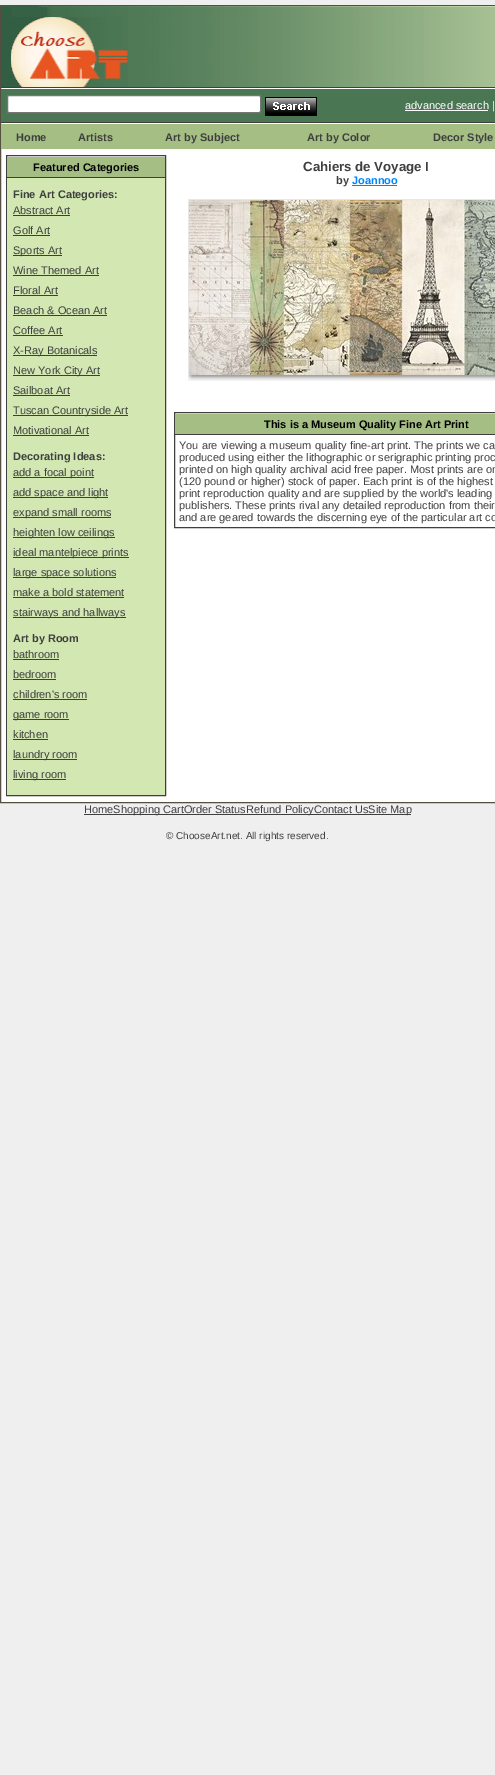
%!PS
<< /PageSize [495 1775] >> setpagedevice
/rgb { dup -16 bitshift 255 div exch dup -8 bitshift 255 and 255 div exch 255 and 255 div setrgbcolor } def
/font { [ exch dup neg 0 0 3 -1 roll 0 0 ] selectfont } def
/text { moveto show } def
/roundrect { 5 dict begin { /r /h /w /y /x } { exch def } forall
  x r add y moveto x w add y 2 copy h add r arct x w add y h add x 1 index r arct
  x y h add x y r arct x y 2 copy exch w add exch r arct closepath end } def
/picture { 5 dict begin { /h /w /y /x /name } { exch def } forall
  gsave x y translate w h scale
  w h 8 [w 0 0 h 0 0] name (r) file false 3 colorimage grestore end } def
0 1775 translate 1 -1 scale
4 setmiterlimit
/s1 { /LiberationSans-Regular 11 font 16#FFFFFF rgb } def
/s2 { /LiberationSans-Bold 11 font 16#3F3F3F rgb } def
/s3 { /LiberationSans-Bold 11 font 16#000000 rgb } def
/s4 { /LiberationSans-Regular 11 font 16#3F3F3F rgb } def
/s5 { /LiberationSans-Bold 13.25 font 16#3F3F3F rgb } def
/s6 { /LiberationSans-Bold 11 font 16#0084FF rgb } def
/s7 { /LiberationSans-Regular 10 font 16#3F3F3F rgb } def
16#EFEFEF rgb
0 0 495 1775 rectfill
16#FFFFFF rgb
1 88 494 714 rectfill
16#564E41 rgb
0.5 5.5 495 797 rectstroke
(pic1.raw) 1 6 494 81 picture
16#3F3F3F rgb
1 87 494 1 rectfill
16#4B7653 rgb
1 89 494 33 rectfill
16#3F3F3F rgb
1 122 494 1 rectfill
16#FFFFFF rgb
7.5 95.5 253 17 1.5 roundrect gsave fill grestore
16#767676 rgb
stroke
(pic2.raw) 265 97 52 19 picture
s1
(advanced search) 405 109 text
405 110 83 1 rectfill
(|) 492 109 text
16#A5BE84 rgb
1 124 494 25 rectfill
s2
(Home) 16 141 text
(Artists) 78 141 text
(Art by Subject) 165 141 text
(Art by Color) 307 141 text
(Decor Style) 433 141 text
6.5 155.5 159 640 rectstroke
16#A5BE84 rgb
7 157 158 20 rectfill
s3
(Featured Categories) 33 171 text
16#D2E7B2 rgb
7 178 158 617 rectfill
16#3F3F3F rgb
7 177 158 1 rectfill
(Fine Art Categories:) 13 198 text
s4
(Abstract Art) 13 214 text
13 215 57 1 rectfill
(Golf Art) 13 234 text
13 235 37 1 rectfill
13 255 49 1 rectfill
(Sports Art) 13 254 text
(Wine Themed Art) 13 274 text
13 275 86 1 rectfill
(Floral Art) 13 294 text
13 295 45 1 rectfill
(Beach & Ocean Art) 13 314 text
13 315 94 1 rectfill
(Coffee Art) 13 334 text
13 335 50 1 rectfill
13 355 84 1 rectfill
(X-Ray Botanicals) 13 354 text
13 375 87 1 rectfill
(New York City Art) 13 374 text
(Sailboat Art) 13 394 text
13 395 57 1 rectfill
13 415 115 1 rectfill
(Tuscan Countryside Art) 13 414 text
(Motivational Art) 13 434 text
13 435 76 1 rectfill
s2
(Decorating Ideas:) 13 460 text
13 477 81 1 rectfill
s4
(add a focal point) 13 476 text
13 497 95 1 rectfill
(add space and light) 13 496 text
13 517 98 1 rectfill
(expand small rooms) 13 516 text
13 537 102 1 rectfill
(heighten low ceilings) 13 536 text
13 557 116 1 rectfill
(ideal mantelpiece prints) 13 556 text
13 577 103 1 rectfill
(large space solutions) 13 576 text
(make a bold statement) 13 596 text
13 597 111 1 rectfill
13 617 113 1 rectfill
(stairways and hallways) 13 616 text
s2
(Art by Room) 13 642 text
s4
(bathroom) 13 658 text
13 659 46 1 rectfill
(bedroom) 13 678 text
13 679 43 1 rectfill
(children's room) 13 698 text
13 699 74 1 rectfill
13 719 56 1 rectfill
(game room) 13 718 text
(kitchen) 13 738 text
13 739 35 1 rectfill
13 759 64 1 rectfill
(laundry room) 13 758 text
13 779 53 1 rectfill
(living room) 13 778 text
s5
(Cahiers de Voyage I) 303 171 text
s2
(by) 336 184 text
s6
(Joannoo) 352 184 text
352 185 45 1 rectfill
16#E7E7E7 rgb
188 199 307 1 rectfill
188 199 1 176 rectfill
(pic3.raw) 189 200 306 175 picture
(pic4.raw) 188 375 307 6 picture
(pic5.raw) 188 375 4 5 picture
16#3F3F3F rgb
174.5 412.5 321 115 rectstroke
16#A5BE84 rgb
175 414 320 20 rectfill
s3
(This is a Museum Quality Fine Art Print) 264 428 text
16#3F3F3F rgb
175 434 320 1 rectfill
s4
(You are viewing a museum quality fine-art print. The prints we ca) 179 449 text
(produced using either the lithographic or serigraphic printing proc) 179 461 text
(printed on high quality archival acid free paper. Most prints are on) 179 473 text
(\(120 pound or higher\) stock of paper. Each print is of the highest) 179 485 text
(print reproduction quality and are supplied by the world's leading) 179 497 text
(publishers. These prints rival any detailed reproduction from their) 179 509 text
(and are geared towards the discerning eye of the particular art co) 179 521 text
84 814 99 1 rectfill
(HomeShopping CartOrder Status) 84 813 text
183 814 228 1 rectfill
(Refund PolicyContact UsSite Map) 246 813 text
s7
(© ChooseArt.net. All rights reserved.) 166 839 text
showpage
